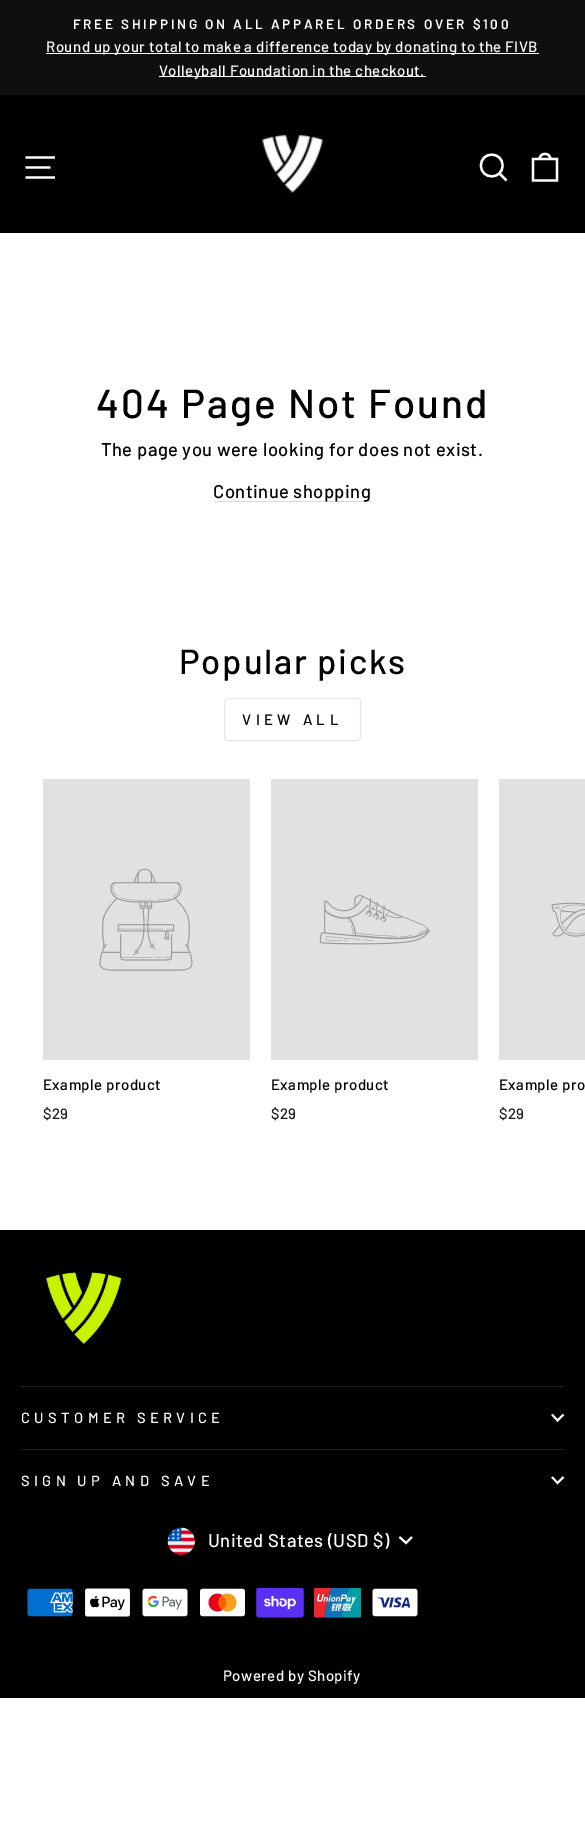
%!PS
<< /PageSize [585 1835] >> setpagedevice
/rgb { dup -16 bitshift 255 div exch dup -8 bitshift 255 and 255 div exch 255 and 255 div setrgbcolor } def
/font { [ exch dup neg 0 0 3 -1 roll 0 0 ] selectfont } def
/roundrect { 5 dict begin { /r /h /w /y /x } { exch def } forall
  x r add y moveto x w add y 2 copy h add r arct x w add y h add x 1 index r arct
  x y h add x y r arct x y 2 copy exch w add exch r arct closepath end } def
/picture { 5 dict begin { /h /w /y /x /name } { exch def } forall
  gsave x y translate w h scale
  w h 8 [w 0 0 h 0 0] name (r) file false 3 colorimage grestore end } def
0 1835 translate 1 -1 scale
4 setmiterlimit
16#FFFFFF rgb
0 0 585 1835 rectfill
16#0F0F0F rgb
0 0 585 95 rectfill
/Barlow-SemiBold 13.5 font
16#FFFFFF rgb
73 29 moveto 2.7 0 (FREE SHIPPING ON ALL APPAREL ORDERS OVER $100) ashow
46 53 493 1 rectfill
/Barlow-Medium 15 font
46 52 moveto 0.45 0 (Round up your total to make a difference today by donating to the FIVB) ashow
159 76 267 1 rectfill
159 76 moveto 0.45 0 (Volleyball Foundation in the checkout.) ashow
16#000000 rgb
0 95 585 138 rectfill
16#FFFFFF rgb
2.3 setlinewidth
25.5 157.5 moveto 55 157.5 lineto 25.5 167.5 moveto 50.5 167.5 lineto 25.5 177.5 moveto 55 177.5 lineto stroke
(pic1.raw) 262 134 61 59 picture
502.5 165.5 moveto 502.5 180 481 180 481 165.5 curveto 481 151 502.5 151 502.5 165.5 curveto closepath 506.5 180.5 moveto 499.5 173.5 lineto stroke
533 159 moveto 557 159 lineto 557 180.5 lineto 533 180.5 lineto closepath 539.5 159.5 moveto 539.5 152 550.5 152 550.5 159.5 curveto stroke
/Barlow-Medium 40.4 font
16#000000 rgb
96 418 moveto 2 0 (404 Page Not Found) ashow
/Barlow-Medium 18.4 font
101 456 moveto 0.45 0 (The page you were looking for does not exist.) ashow
16#D9D9D9 rgb
214 501 157 1 rectfill
16#000000 rgb
213 498 moveto 0.45 0 (Continue shopping) ashow
/Barlow-Medium 34.75 font
179 674 moveto 1.75 0 (Popular picks) ashow
16#E8E8E1 rgb
1 setlinewidth
224.5 698.5 136 42 3.5 roundrect stroke
/Barlow-Medium 15 font
16#000000 rgb
242 725 moveto 4.5 0 (VIEW ALL) ashow
16#E1E1E1 rgb
43 779 207 281 rectfill
(pic2.raw) 99 868 94 103 picture
16#000000 rgb
43 1090 moveto 0.45 0 (Example product) ashow
16#1C1D1D rgb
43 1119 moveto 0.45 0 ($29) ashow
16#E1E1E1 rgb
271 779 207 281 rectfill
(pic3.raw) 319 895 111 50 picture
16#000000 rgb
271 1090 moveto 0.45 0 (Example product) ashow
16#1C1D1D rgb
271 1119 moveto 0.45 0 ($29) ashow
16#E1E1E1 rgb
499 779 86 281 rectfill
(pic4.raw) 551 902 34 35 picture
16#000000 rgb
499 1090 moveto 0.45 0 (Example pro) ashow
16#1C1D1D rgb
499 1119 moveto 0.45 0 ($29) ashow
16#000000 rgb
0 1230 585 468 rectfill
(pic5.raw) 46 1272 76 72 picture
16#1F1F1F rgb
21 1386 543 1 rectfill
/Barlow-Medium 14.75 font
16#FFFFFF rgb
21 1423 moveto 4.4 0 (CUSTOMER SERVICE) ashow
1.8 setlinewidth
552 1414.5 moveto 557.5 1420.5 lineto 563.5 1414.5 lineto stroke
16#1F1F1F rgb
21 1449 543 1 rectfill
16#FFFFFF rgb
21 1486 moveto 4.4 0 (SIGN UP AND SAVE) ashow
552 1477 moveto 557.5 1483 lineto 563.5 1477 lineto stroke
(pic6.raw) 167 1527 28 28 picture
/Barlow-Medium 18.4 font
208 1547 moveto 0.45 0 (United States \(USD $\)) ashow
2 setlinewidth
399.5 1537 moveto 406 1543 lineto 412 1537 lineto stroke
(pic7.raw) 27 1588 46 29 picture
(pic8.raw) 85 1588 45 29 picture
(pic9.raw) 142 1588 46 29 picture
(pic10.raw) 200 1588 45 29 picture
(pic11.raw) 256 1588 48 30 picture
(pic12.raw) 314 1588 47 30 picture
(pic13.raw) 372 1588 46 29 picture
/Barlow-Medium 15 font
223 1681 moveto 0.45 0 (Powered by Shopify) ashow
showpage
